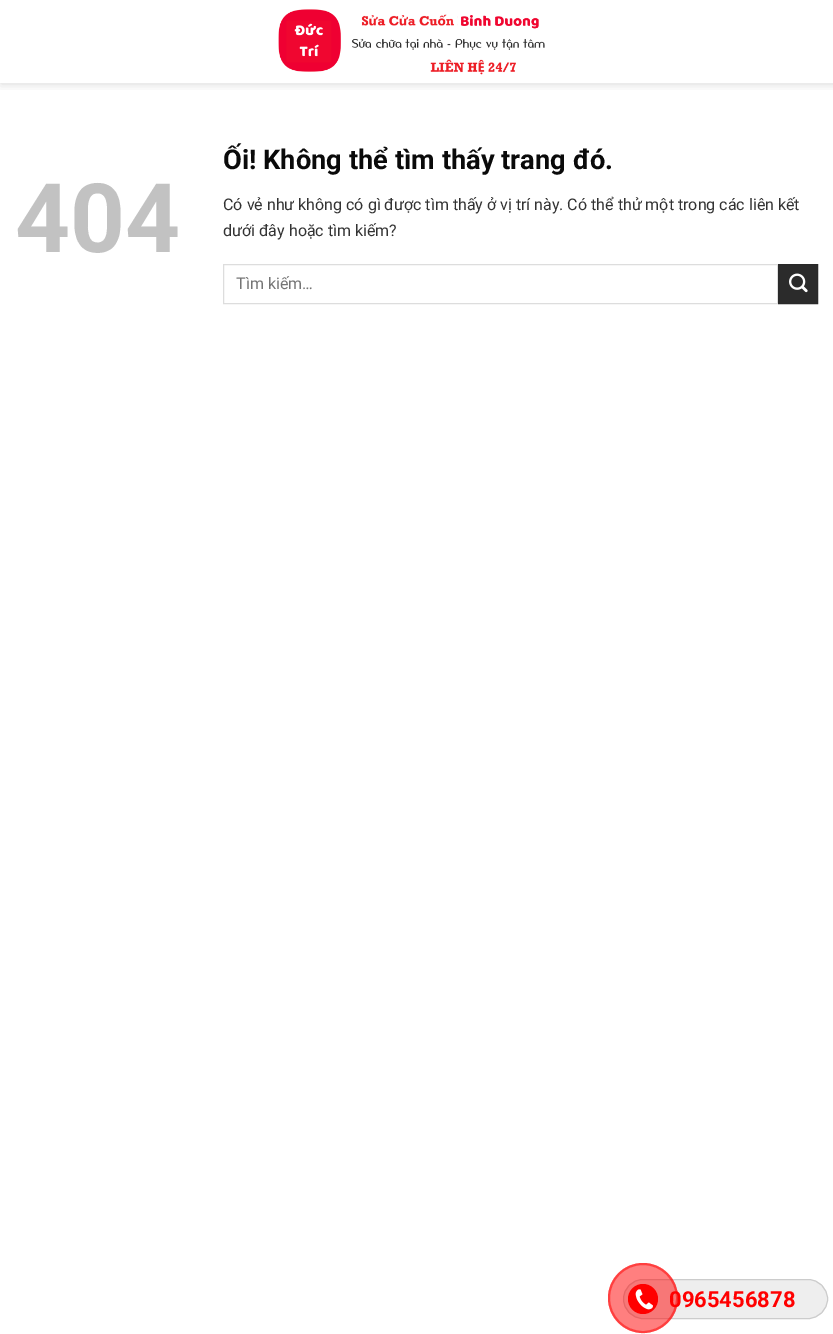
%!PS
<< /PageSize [833 1334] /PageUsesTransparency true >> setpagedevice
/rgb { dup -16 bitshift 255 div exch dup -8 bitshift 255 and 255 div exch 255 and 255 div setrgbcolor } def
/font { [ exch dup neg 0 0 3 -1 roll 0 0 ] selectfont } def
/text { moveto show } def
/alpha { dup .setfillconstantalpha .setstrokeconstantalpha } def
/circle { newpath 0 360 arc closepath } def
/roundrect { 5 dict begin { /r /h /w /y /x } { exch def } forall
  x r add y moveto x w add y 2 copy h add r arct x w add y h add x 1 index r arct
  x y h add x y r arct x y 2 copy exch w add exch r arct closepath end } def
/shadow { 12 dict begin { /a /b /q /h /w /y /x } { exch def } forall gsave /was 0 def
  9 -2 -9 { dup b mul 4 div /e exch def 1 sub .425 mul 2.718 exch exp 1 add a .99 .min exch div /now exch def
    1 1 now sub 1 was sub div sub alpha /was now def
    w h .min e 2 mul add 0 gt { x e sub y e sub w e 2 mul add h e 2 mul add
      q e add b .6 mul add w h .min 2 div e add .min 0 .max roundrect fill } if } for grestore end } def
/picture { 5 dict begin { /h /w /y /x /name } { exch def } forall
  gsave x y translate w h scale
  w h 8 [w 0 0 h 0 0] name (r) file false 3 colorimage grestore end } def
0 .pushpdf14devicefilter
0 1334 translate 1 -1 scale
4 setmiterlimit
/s1 { /Roboto-Bold 96 font 16#C2C2C2 rgb } def
/s2 { /Roboto-Bold 27.25 font 16#0A0A0A rgb } def
/s3 { /Roboto-Regular 16 font 16#333333 rgb } def
/s4 { /Roboto-Regular 16 font 16#757575 rgb } def
/s5 { /Roboto-Bold 22 font 16#FF0000 rgb } def
16#FFFFFF rgb
0 0 833 1334 rectfill
gsave
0 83 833 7 rectclip
16#000000 rgb
1 1 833 83 0 5 0.15 shadow
grestore
(pic1.raw) 278 9 267 66 picture
s1
(404) 15 252 text
s2
(Ối! Không thể tìm thấy trang đó.) 223 169 text
s3
(Có vẻ như không có gì được tìm thấy ở vị trí này. Có thể thử một trong các liên kết) 223 210 text
(dưới đây hoặc tìm kiếm?) 223 236 text
16#DDDDDD rgb
223.5 264.5 554 39 rectstroke
s4
(Tìm kiếm…) 236 289 text
16#2B2B2B rgb
778.5 264.5 moveto 817.5 264.5 lineto 817.5 303.5 lineto 778.5 303.5 lineto closepath gsave fill grestore
16#292929 rgb
stroke
(pic2.raw) 789 273 19 20 picture
16#EEEEEE rgb
623.5 1279.5 204 39 19.5 roundrect gsave fill grestore
16#CCCCCC rgb
stroke
s5
(0965456878) 669 1307 text
0.5 alpha
643 1298 35 circle fill
2 setlinewidth
643 1298 34 circle stroke
1 alpha
643 1299 15 circle fill
(pic3.raw) 635 1289 18 21 picture
.poppdf14devicefilter showpage
